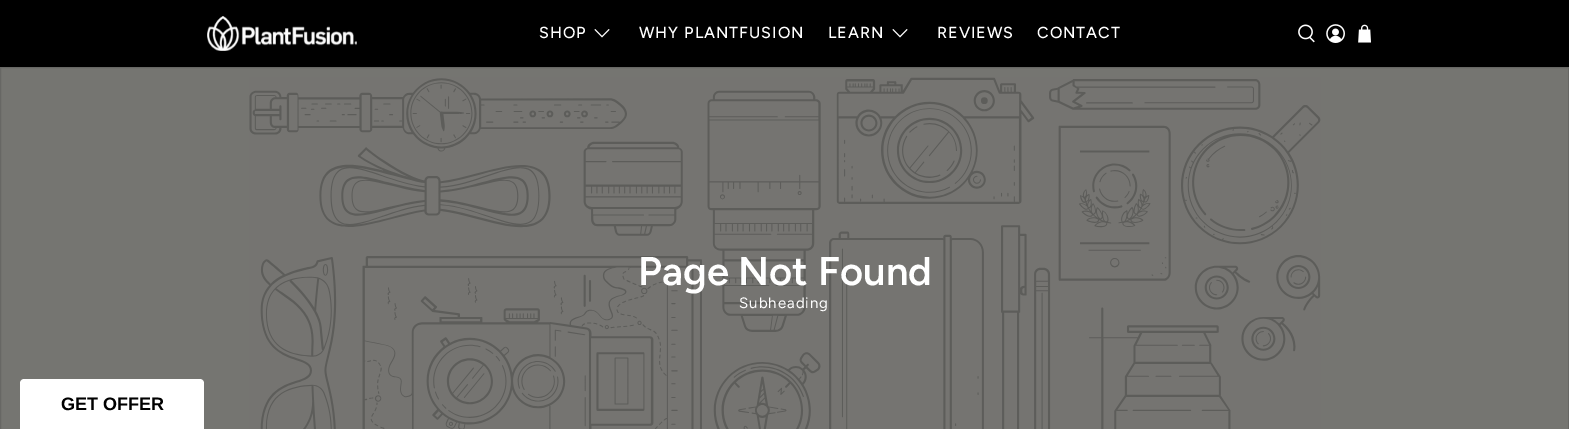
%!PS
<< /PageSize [1569 429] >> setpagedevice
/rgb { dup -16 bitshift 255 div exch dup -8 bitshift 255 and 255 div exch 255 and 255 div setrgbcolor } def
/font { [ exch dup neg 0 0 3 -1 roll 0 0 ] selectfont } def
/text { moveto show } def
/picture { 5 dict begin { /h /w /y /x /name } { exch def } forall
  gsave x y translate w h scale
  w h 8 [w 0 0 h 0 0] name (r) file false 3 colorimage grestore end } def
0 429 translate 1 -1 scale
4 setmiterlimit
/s1 { /Figtree-SemiBold 40 font 16#FFFFFF rgb } def
/s2 { /LiberationSans-Bold 18 font 16#000000 rgb } def
16#757571 rgb
0 0 1569 429 rectfill
16#000000 rgb
0 0 1569 67 rectfill
(pic1.raw) 207 16 150 35 picture
/Figtree-Medium 16 font
16#FFFFFF rgb
539 38 moveto 1 0 (SHOP) ashow
(pic2.raw) 594 29 16 9 picture
639 38 moveto 1 0 (WHY PLANTFUSION) ashow
828 38 moveto 1 0 (LEARN) ashow
(pic2.raw) 892 29 16 9 picture
937 38 moveto 1 0 (REVIEWS) ashow
1037 38 moveto 1 0 (CONTACT) ashow
(pic3.raw) 1298 24 17 19 picture
(pic4.raw) 1326 24 19 19 picture
(pic5.raw) 1358 24 13 19 picture
16#676764 rgb
0.5 67.5 1568 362 rectstroke
(pic6.raw) 249 77 1072 352 picture
s1
(Page Not Found) 638 285 text
/Figtree-Regular 15 font
739 308 moveto 1 0 (Subheading) ashow
24 379 moveto 200 379 lineto 202 379 204 381 204 383 curveto 204 429 lineto 20 429 lineto 20 383 lineto 20 381 22 379 24 379 curveto closepath fill
s2
(GET OFFER) 61 410 text
showpage
